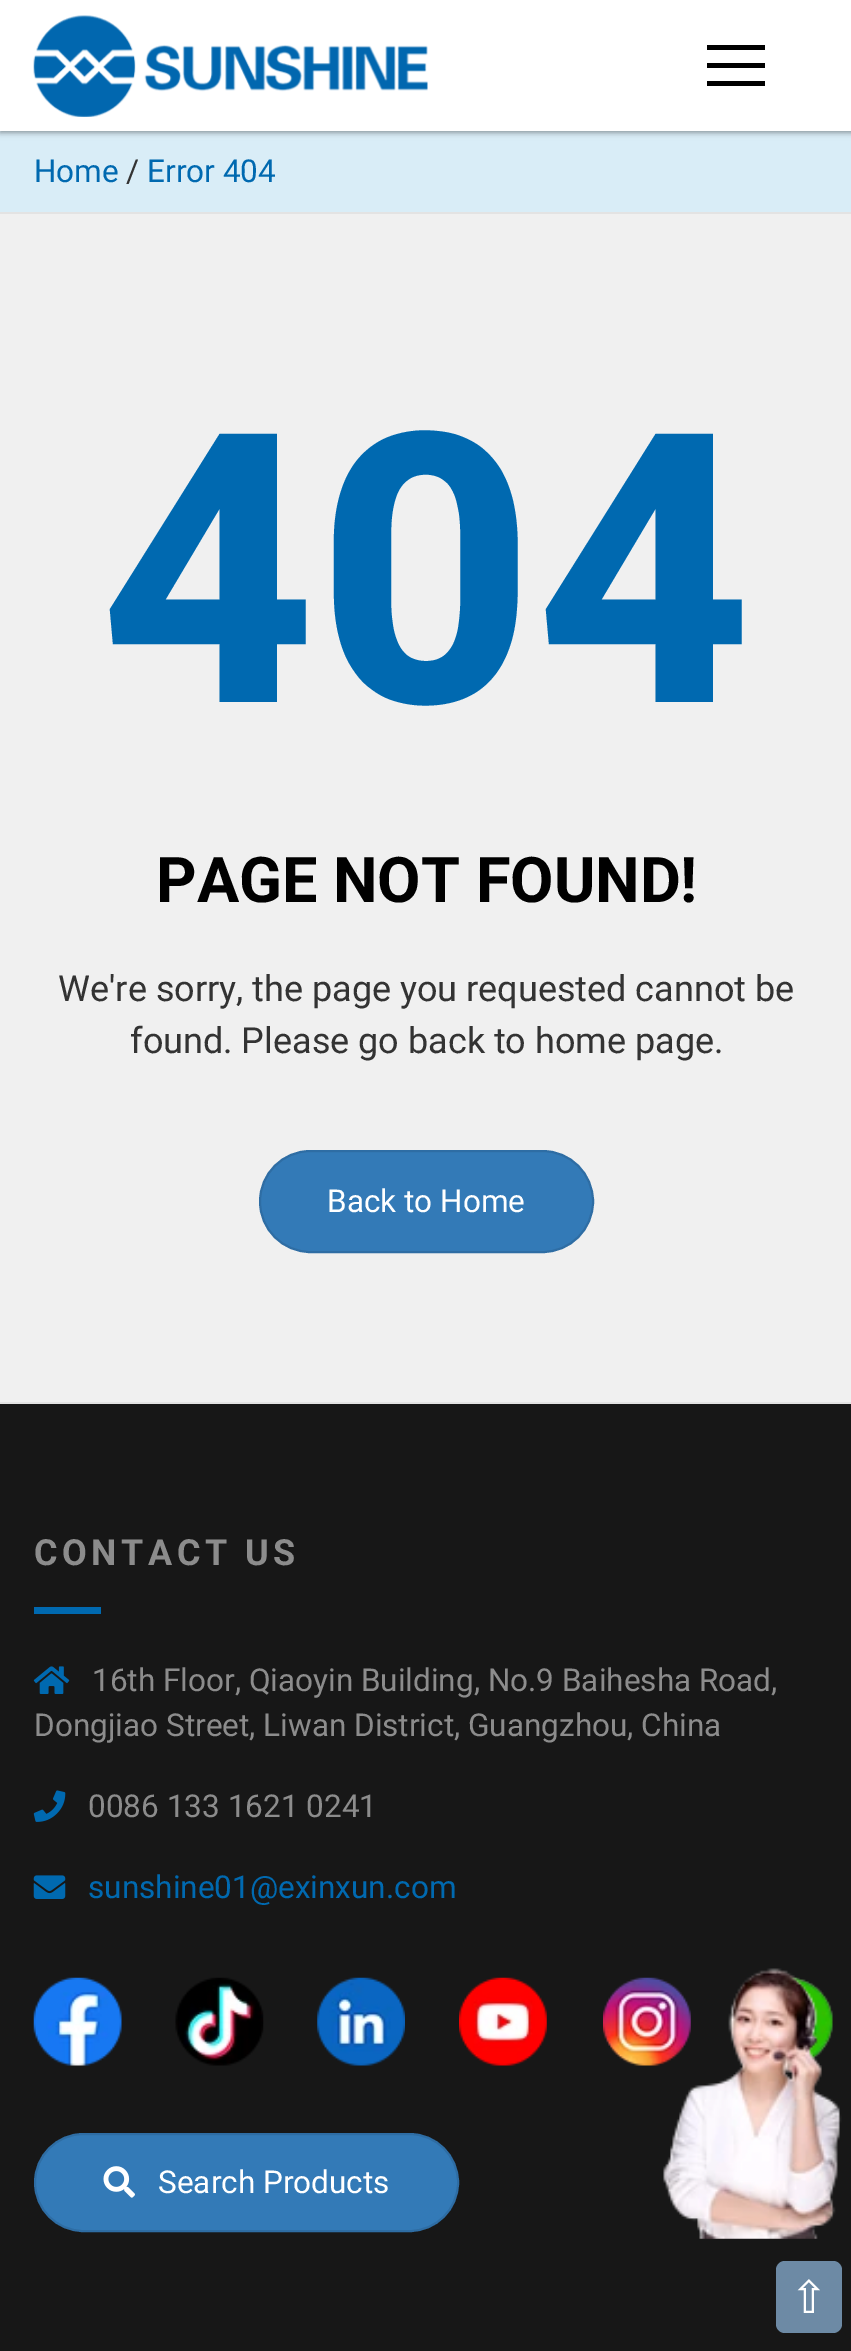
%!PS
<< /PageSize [851 2351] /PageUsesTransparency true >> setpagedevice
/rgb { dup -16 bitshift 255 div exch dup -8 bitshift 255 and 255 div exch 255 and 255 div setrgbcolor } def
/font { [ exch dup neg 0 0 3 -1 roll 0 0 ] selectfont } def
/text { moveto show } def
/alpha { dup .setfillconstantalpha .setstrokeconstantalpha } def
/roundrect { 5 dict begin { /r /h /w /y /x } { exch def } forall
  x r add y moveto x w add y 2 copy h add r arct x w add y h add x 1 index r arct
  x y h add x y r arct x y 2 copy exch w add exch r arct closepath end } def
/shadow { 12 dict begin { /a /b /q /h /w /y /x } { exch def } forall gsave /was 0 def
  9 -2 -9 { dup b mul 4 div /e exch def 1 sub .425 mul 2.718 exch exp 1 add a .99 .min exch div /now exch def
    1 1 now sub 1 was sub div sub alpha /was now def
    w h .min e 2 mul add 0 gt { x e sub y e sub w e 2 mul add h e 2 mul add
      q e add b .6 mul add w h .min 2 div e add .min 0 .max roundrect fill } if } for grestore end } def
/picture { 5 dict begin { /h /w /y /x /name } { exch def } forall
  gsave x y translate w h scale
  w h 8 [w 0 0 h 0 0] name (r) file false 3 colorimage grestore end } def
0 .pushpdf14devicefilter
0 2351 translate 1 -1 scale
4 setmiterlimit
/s1 { /Roboto-Regular 31.5 font 16#0069B0 rgb } def
/s2 { /Roboto-Regular 31.5 font 16#333333 rgb } def
/s3 { /Roboto-ExtraBold 378 font 16#0069B0 rgb } def
/s4 { /Roboto-Bold 63 font 16#000000 rgb } def
/s5 { /Roboto-Regular 36 font 16#333333 rgb } def
/s6 { /Roboto-Regular 31.5 font 16#FFFFFF rgb } def
/s7 { /Roboto-Regular 31.5 font 16#8C8C8C rgb } def
/s8 { /DejaVuSans-Regular 45 font 16#FFFFFF rgb } def
16#D9EDF7 rgb
0 0 851 2351 rectfill
16#000000 rgb
0 2 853 131 0 2 0.24 shadow
0 2 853 131 0 3.5 0.12 shadow
16#FFFFFF rgb
0 0 851 131 rectfill
(pic1.raw) 33 15 395 102 picture
16#000000 rgb
707 63 58 5 rectfill
707 45 58 5 rectfill
707 81 58 5 rectfill
s1
(Home) 34 182 text
s2
(/) 126 182 text
s1
(Error 404) 147 182 text
16#F0F0F0 rgb
0 214 851 1188 rectfill
16#E3E3E3 rgb
0 212 851 2 rectfill
0 1402 851 2 rectfill
s3
(404) 99 702 text
s4
(PAGE NOT FOUND!) 156 902 text
s5
(We're sorry, the page you requested cannot be) 58 1001 text
(found. Please go back to home page.) 130 1053 text
16#337AB7 rgb
260 1151 333 101 50.5 roundrect gsave fill grestore
16#2E6DA4 rgb
2 setlinewidth
stroke
s6
(Back to Home) 327 1212 text
16#171717 rgb
0 1404 851 947 rectfill
/Roboto-Bold 36 font
16#8C8C8C rgb
34 1565 moveto 4.5 0 (CONTACT US) ashow
16#0069B0 rgb
34 1607 67 7 rectfill
(pic2.raw) 33 1666 37 28 picture
s7
(16th Floor, Qiaoyin Building, No.9 Baihesha Road,) 92 1691 text
(Dongjiao Street, Liwan District, Guangzhou, China) 34 1736 text
(pic3.raw) 33 1790 33 32 picture
(0086 133 1621 0241) 88 1817 text
(pic4.raw) 33 1875 33 24 picture
s1
(sunshine01@exinxun.com) 88 1898 text
(pic5.raw) 33 1977 89 89 picture
(pic6.raw) 175 1977 89 89 picture
(pic7.raw) 317 1977 88 89 picture
(pic8.raw) 459 1977 88 89 picture
(pic9.raw) 603 1977 88 89 picture
(pic10.raw) 789 1977 44 84 picture
16#337AB7 rgb
35 2134 423 97 48.5 roundrect gsave fill grestore
16#2E6DA4 rgb
stroke
(pic11.raw) 103 2166 32 32 picture
s6
(Search Products) 158 2193 text
(pic12.raw) 663 1968 179 271 picture
16#6D8AA5 rgb
776 2261 66 72 9 roundrect fill
s8
(⇧) 790 2313 text
.poppdf14devicefilter showpage
